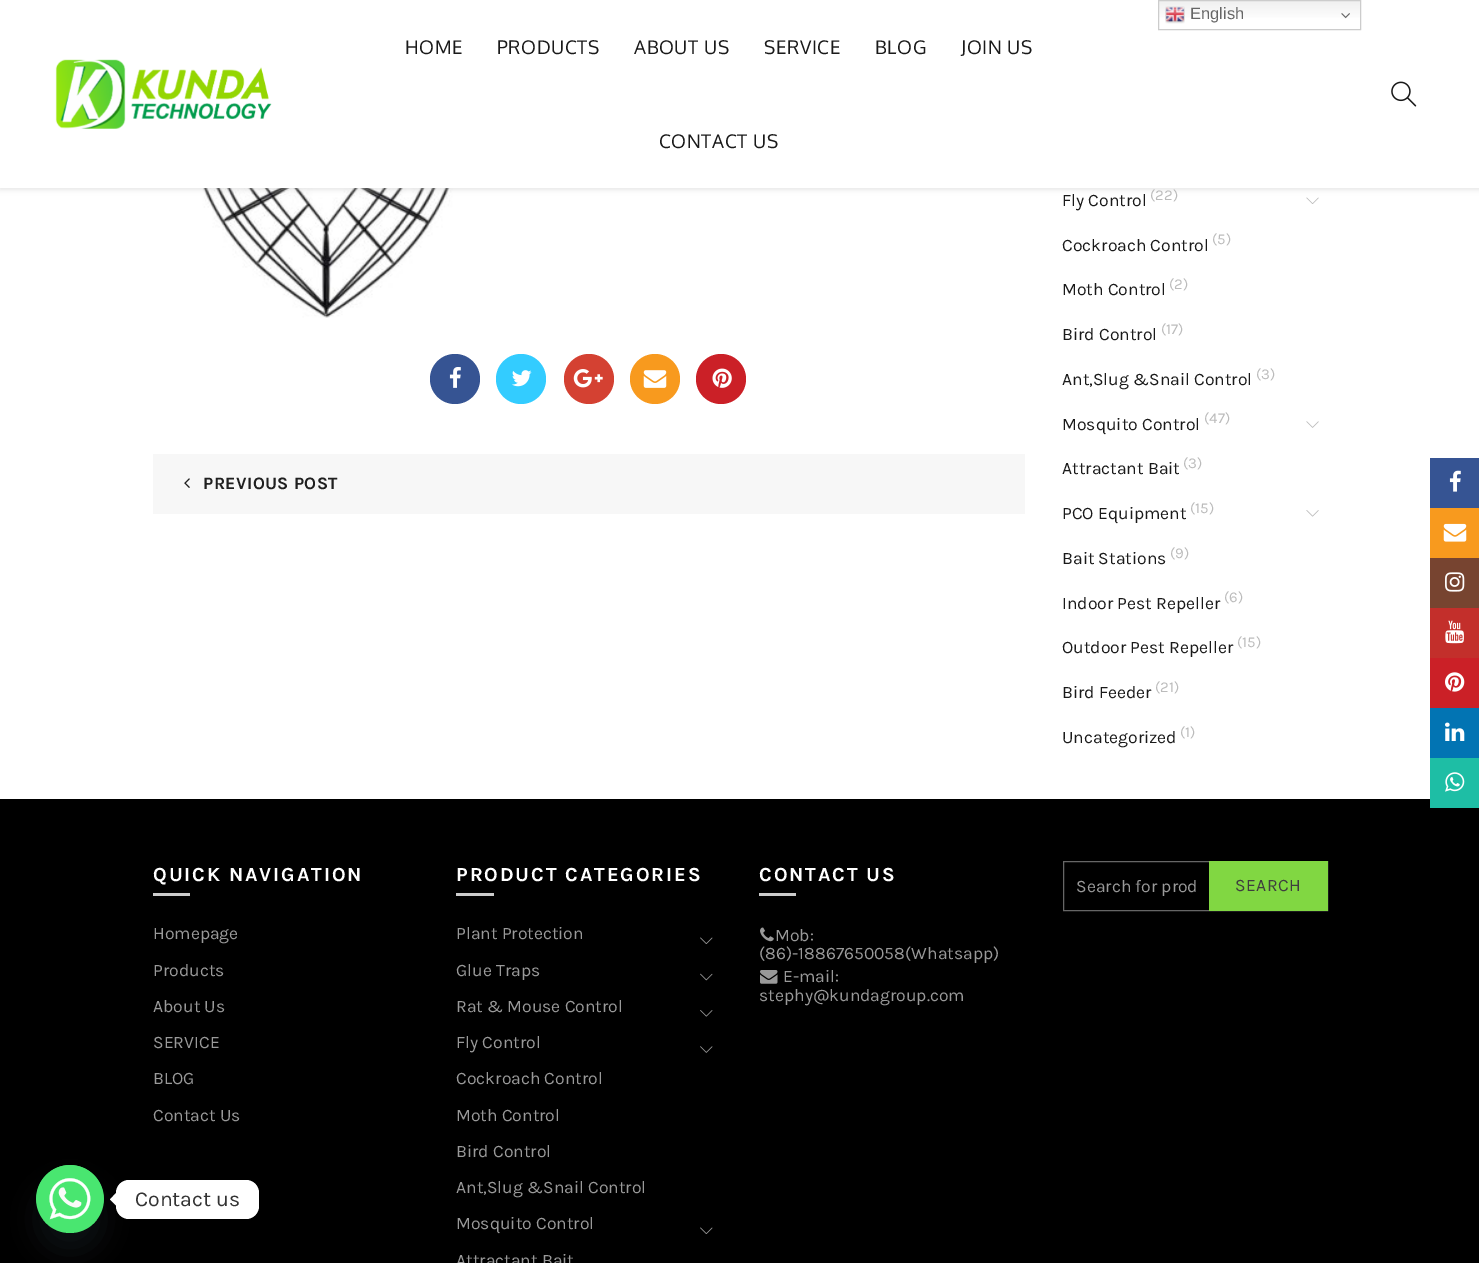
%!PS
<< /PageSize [1479 1263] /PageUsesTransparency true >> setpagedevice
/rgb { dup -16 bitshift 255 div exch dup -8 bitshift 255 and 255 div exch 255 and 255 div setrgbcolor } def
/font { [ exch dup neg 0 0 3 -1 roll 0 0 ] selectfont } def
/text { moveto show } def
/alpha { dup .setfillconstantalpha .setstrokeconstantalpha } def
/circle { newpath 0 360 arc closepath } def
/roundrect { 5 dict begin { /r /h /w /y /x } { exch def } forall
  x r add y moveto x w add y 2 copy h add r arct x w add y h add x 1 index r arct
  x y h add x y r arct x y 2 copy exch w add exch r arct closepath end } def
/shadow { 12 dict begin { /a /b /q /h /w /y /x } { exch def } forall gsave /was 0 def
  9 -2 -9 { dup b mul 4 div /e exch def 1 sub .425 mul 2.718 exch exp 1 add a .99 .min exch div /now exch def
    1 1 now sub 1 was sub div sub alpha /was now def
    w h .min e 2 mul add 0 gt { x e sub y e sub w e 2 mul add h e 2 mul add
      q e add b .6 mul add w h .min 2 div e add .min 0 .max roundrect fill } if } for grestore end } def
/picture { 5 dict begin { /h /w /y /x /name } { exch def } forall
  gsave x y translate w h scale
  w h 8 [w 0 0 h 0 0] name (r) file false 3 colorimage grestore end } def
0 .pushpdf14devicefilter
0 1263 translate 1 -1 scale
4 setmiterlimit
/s1 { /LiberationSans-Regular 16.5 font 16#666666 rgb } def
/s2 { /Karla-Regular 17.5 font 16#1A1A1A rgb } def
/s3 { /Karla-Regular 15 font 16#BBBBBB rgb } def
/s4 { /Karla-Regular 17.5 font 16#999999 rgb } def
/s5 { /Karla-Regular 21.25 font 16#333333 rgb } def
16#FFFFFF rgb
0 0 1479 1263 rectfill
(pic5.raw) 192 188 270 130 picture
(pic12.raw) 1306 197 13 7 picture
16#BEBEBE rgb
0 1 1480 188 0 3 0.5 shadow
16#FFFFFF rgb
0 0 1479 188 rectfill
gsave 1159 1 moveto 1360 1 lineto 1360 18 lineto 1159 18 lineto closepath clip newpath
<< /ShadingType 2 /ColorSpace /DeviceRGB /Coords [1259 0 1259 30] /Extend [true true] /Function << /FunctionType 3 /Domain [0 1] /Functions [<< /FunctionType 2 /Domain [0 1] /C0 [0.937 0.937 0.937] /C1 [1 1 1] /N 1 >> << /FunctionType 2 /Domain [0 1] /C0 [1 1 1] /C1 [1 1 1] /N 1 >>] /Bounds [0.7] /Encode [0 1 0 1] >> >> shfill grestore
16#CCCCCC rgb
1158.5 0.5 202 29 rectstroke
(pic1.raw) 1165 6 20 18 picture
s1
(English) 1190 19 text
(pic2.raw) 1341 13 9 6 picture
(pic3.raw) 55 59 217 70 picture
/Oxygen-Regular 18.75 font
16#1A1A1A rgb
405 54 moveto 0.6 0 (HOME) ashow
497 54 moveto 0.6 0 (PRODUCTS) ashow
634 54 moveto 0.6 0 (ABOUT US) ashow
764 54 moveto 0.6 0 (SERVICE) ashow
875 54 moveto 0.6 0 (BLOG) ashow
961 54 moveto 0.6 0 (JOIN US) ashow
659 148 moveto 0.6 0 (CONTACT US) ashow
(pic4.raw) 1391 81 26 26 picture
16#365493 rgb
455 379 25 circle fill
(pic6.raw) 449 367 12 21 picture
16#33CCFF rgb
521 379 25 circle fill
(pic7.raw) 512 370 20 17 picture
16#D44132 rgb
589 379 25 circle fill
(pic8.raw) 573 369 30 19 picture
16#F89A1E rgb
655 379 25 circle fill
(pic9.raw) 643 370 24 18 picture
16#CB2027 rgb
721 379 25 circle fill
(pic10.raw) 712 368 20 20 picture
16#F7F7F7 rgb
153 454 872 60 rectfill
(pic11.raw) 184 478 6 10 picture
/Karla-Bold 17.5 font
16#202020 rgb
203 489 moveto 0.4 0 (PREVIOUS POST) ashow
s2
(Fly Control) 1062 206 text
s3
(\(22\)) 1150 200 text
s2
(Cockroach Control) 1062 251 text
s3
(\(5\)) 1212 244 text
s2
(Moth Control) 1062 295 text
s3
(\(2\)) 1169 289 text
s2
(Bird Control) 1062 340 text
s3
(\(17\)) 1161 334 text
s2
(Ant,Slug &Snail Control) 1062 385 text
s3
(\(3\)) 1256 379 text
s2
(Mosquito Control) 1062 430 text
s3
(\(47\)) 1204 423 text
(pic13.raw) 1306 421 13 7 picture
s2
(Attractant Bait) 1062 474 text
s3
(\(3\)) 1183 468 text
s2
(PCO Equipment) 1062 519 text
s3
(\(15\)) 1190 513 text
(pic14.raw) 1306 510 13 7 picture
s2
(Bait Stations) 1062 564 text
s3
(\(9\)) 1170 558 text
s2
(Indoor Pest Repeller) 1062 609 text
s3
(\(6\)) 1224 602 text
s2
(Outdoor Pest Repeller) 1062 653 text
s3
(\(15\)) 1237 647 text
s2
(Bird Feeder) 1062 698 text
s3
(\(21\)) 1155 692 text
s2
(Uncategorized) 1062 743 text
s3
(\(1\)) 1180 737 text
16#000000 rgb
0 799 1479 464 rectfill
/Karla-Bold 20 font
16#FFFFFF rgb
153 881 moveto 1.9 0 (QUICK NAVIGATION) ashow
16#CCCCCC rgb
153 893 37 3 rectfill
s4
(Homepage) 153 939 text
(Products) 153 976 text
(About Us) 153 1012 text
(SERVICE) 153 1048 text
(BLOG) 153 1084 text
(Contact Us) 153 1121 text
/Karla-Bold 20 font
16#FFFFFF rgb
456 881 moveto 1.9 0 (PRODUCT CATEGORIES) ashow
16#CCCCCC rgb
456 893 38 3 rectfill
s4
(Plant Protection) 456 939 text
(pic15.raw) 700 937 13 7 picture
(Glue Traps) 456 976 text
(pic16.raw) 700 973 13 8 picture
(Rat & Mouse Control) 456 1012 text
(pic17.raw) 700 1010 13 7 picture
(Fly Control) 456 1048 text
(pic18.raw) 700 1046 13 7 picture
(Cockroach Control) 456 1084 text
(Moth Control) 456 1121 text
(Bird Control) 456 1157 text
(Ant,Slug &Snail Control) 456 1193 text
(Mosquito Control) 456 1229 text
(pic15.raw) 700 1227 13 7 picture
(Attractant Bait) 456 1266 text
/Karla-Bold 20 font
16#FFFFFF rgb
759 881 moveto 1.9 0 (CONTACT US) ashow
16#CCCCCC rgb
759 893 37 3 rectfill
(pic19.raw) 760 927 14 15 picture
s4
(Mob:) 775 941 text
(\(86\)-18867650058\(Whatsapp\)) 759 959 text
(pic20.raw) 760 970 18 14 picture
(E-mail:) 783 982 text
(stephy@kundagroup.com) 759 1001 text
16#666666 rgb
1063.5 861.5 264 49 rectstroke
s4
(Search for prod) 1076 892 text
16#81D742 rgb
1209 861 119 50 rectfill
16#3E3E3E rgb
1235 891 moveto 0.4 0 (SEARCH) ashow
16#365493 rgb
1430 458 49 50 rectfill
(pic21.raw) 1449 470 12 22 picture
16#F89A1E rgb
1430 508 49 50 rectfill
(pic22.raw) 1443 523 24 19 picture
16#774430 rgb
1430 558 49 50 rectfill
(pic23.raw) 1445 572 20 20 picture
16#C32F2B rgb
1430 608 49 50 rectfill
(pic24.raw) 1445 620 19 24 picture
16#CB2027 rgb
1430 658 49 50 rectfill
(pic25.raw) 1445 672 20 20 picture
16#0274B3 rgb
1430 708 49 50 rectfill
(pic26.raw) 1445 722 20 19 picture
16#1EBEA5 rgb
1430 758 49 50 rectfill
(pic27.raw) 1445 772 20 20 picture
16#49687E rgb
36 1185 68 68 34 15 0.16 shadow
16#49E670 rgb
70 1199 34 circle fill
(pic28.raw) 36 1165 68 55 picture
16#FFFFFF rgb
116 1180 143 39 13 roundrect fill
116 1193 moveto 116 1205.5 lineto 110 1199.5 lineto closepath fill
s5
(Contact us) 135 1206 text
.poppdf14devicefilter showpage
